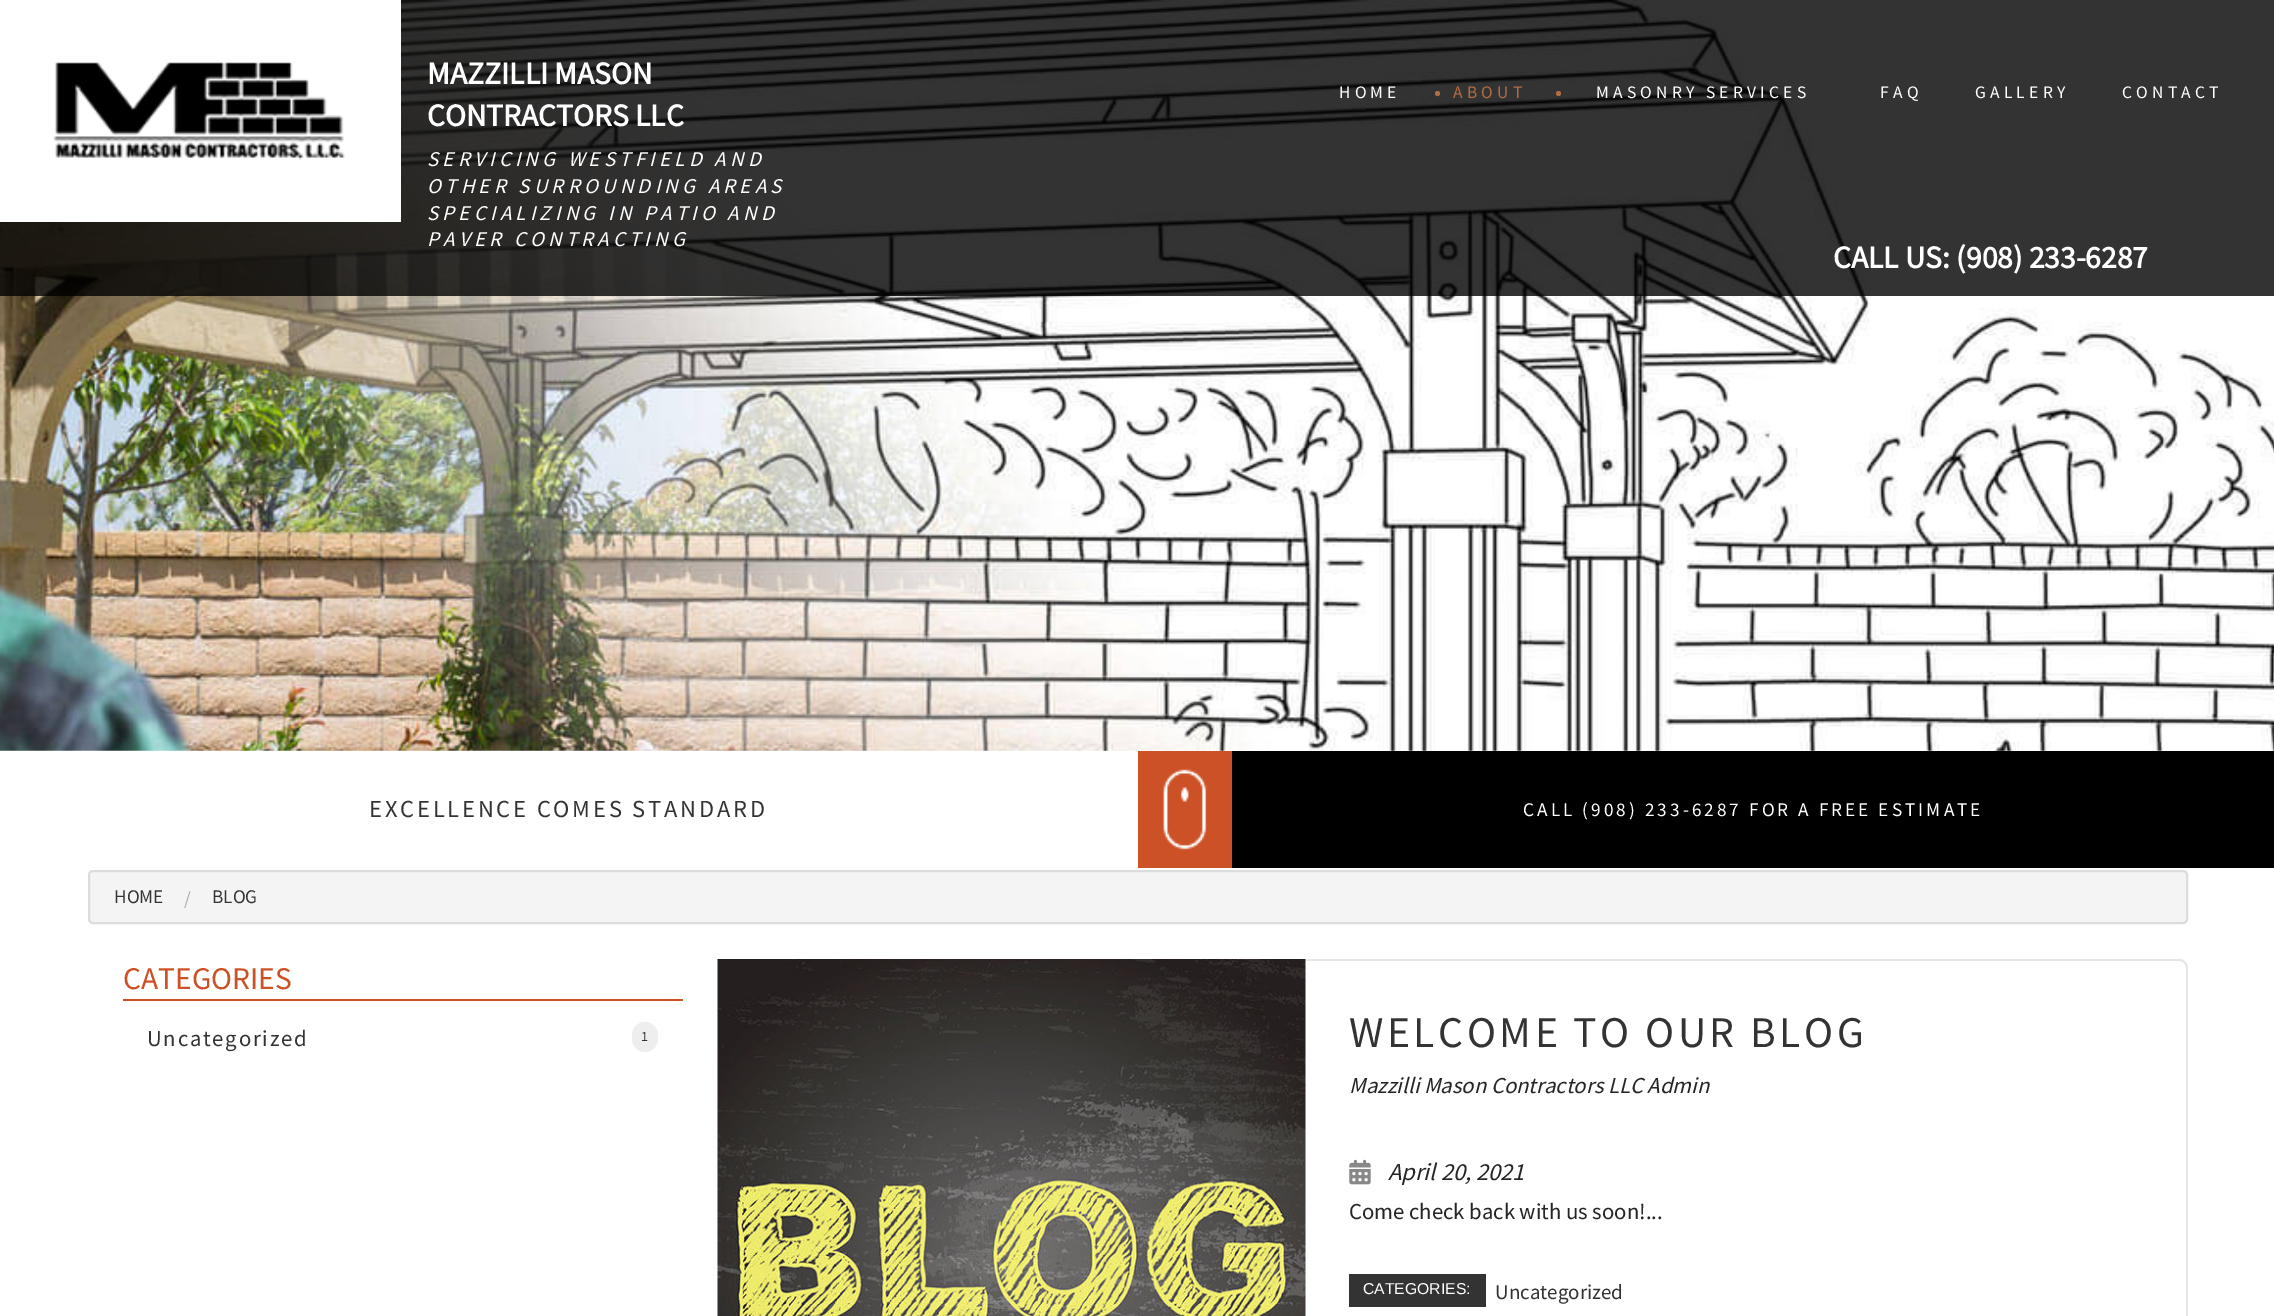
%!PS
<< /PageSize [2274 1316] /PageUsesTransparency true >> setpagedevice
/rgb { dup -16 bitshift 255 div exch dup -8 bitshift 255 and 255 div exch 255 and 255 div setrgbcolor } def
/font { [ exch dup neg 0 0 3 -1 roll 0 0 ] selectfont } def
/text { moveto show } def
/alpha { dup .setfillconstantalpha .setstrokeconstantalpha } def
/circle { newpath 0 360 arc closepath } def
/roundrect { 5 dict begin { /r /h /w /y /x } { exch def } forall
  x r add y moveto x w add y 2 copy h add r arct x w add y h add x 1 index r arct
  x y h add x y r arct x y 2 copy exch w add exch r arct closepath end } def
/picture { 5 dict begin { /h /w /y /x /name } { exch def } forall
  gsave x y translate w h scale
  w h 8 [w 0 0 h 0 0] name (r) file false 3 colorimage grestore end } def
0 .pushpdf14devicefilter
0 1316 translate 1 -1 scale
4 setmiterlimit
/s1 { /SourceSansPro-Bold 31.5 font 16#FFFFFF rgb } def
/s2 { /SourceSansPro-Regular 19.25 font 16#333333 rgb } def
/s3 { /SourceSansPro-Regular 19.25 font 16#AAAAAA rgb } def
/s4 { /SourceSansPro-Regular 31.5 font 16#CD5126 rgb } def
/s5 { /SourceSansPro-Italic 22.75 font 16#252525 rgb } def
/s6 { /SourceSansPro-Italic 24.5 font 16#252525 rgb } def
/s7 { /SourceSansPro-Regular 22.75 font 16#252525 rgb } def
/s8 { /LiberationSans-Regular 15.75 font 16#FFFFFF rgb } def
/s9 { /SourceSansPro-Regular 21 font 16#333333 rgb } def
16#FFFFFF rgb
0 0 2274 1316 rectfill
(pic1.raw) 0 0 2274 751 picture
0.8 alpha
16#000000 rgb
0 0 2274 296 rectfill
1 alpha
16#FFFFFF rgb
0 0 401 222 rectfill
(pic2.raw) 53 62 292 99 picture
s1
(MAZZILLI MASON) 427 84 text
(CONTRACTORS LLC) 427 126 text
/SourceSansPro-Italic 21 font
427 166 moveto 4.2 0 (SERVICING WESTFIELD AND) ashow
427 193 moveto 4.2 0 (OTHER SURROUNDING AREAS) ashow
427 220 moveto 4.2 0 (SPECIALIZING IN PATIO AND) ashow
427 246 moveto 4.2 0 (PAVER CONTRACTING) ashow
/SourceSansPro-Regular 17.5 font
1339 98 moveto 4.2 0 (HOME) ashow
16#B26C42 rgb
1437.5 93.5 2.5 circle fill
1453 98 moveto 4.2 0 (ABOUT) ashow
1558.5 93.5 2.5 circle fill
16#FFFFFF rgb
1596 98 moveto 4.2 0 (MASONRY SERVICES) ashow
1880 98 moveto 4.2 0 (FAQ) ashow
1975 98 moveto 4.2 0 (GALLERY) ashow
2122 98 moveto 4.2 0 (CONTACT) ashow
s1
(CALL US: \(908\) 233-6287) 1833 268 text
/SourceSansPro-Regular 24.5 font
16#333333 rgb
369 817 moveto 2.8 0 (EXCELLENCE COMES STANDARD) ashow
16#000000 rgb
1232 751 1042 117 rectfill
16#CD5126 rgb
1138 751 94 117 rectfill
(pic3.raw) 1163 769 44 81 picture
(pic4.raw) 1180 787 9 15 picture
/SourceSansPro-Regular 19.25 font
16#FFFFFF rgb
1523 816 moveto 3.05 0 (CALL \(908\) 233-6287 FOR A FREE ESTIMATE) ashow
16#F4F4F4 rgb
89 871 2098 52 4 roundrect gsave fill grestore
16#DCDCDC rgb
2 setlinewidth
stroke
s2
(HOME) 114 903 text
s3
(/) 184 905 text
s2
(BLOG) 212 903 text
16#CD5126 rgb
123 999 560 2 rectfill
s4
(CATEGORIES) 123 989 text
/SourceSansPro-Regular 22.75 font
16#333333 rgb
147 1046 moveto 1.75 0 (Uncategorized) ashow
16#EEEEEE rgb
632 1022 26 30 13 roundrect fill
/SourceSansPro-Regular 14 font
16#333333 rgb
641 1041 moveto 1.75 0 (1) ashow
(pic5.raw) 717 959 589 357 picture
16#E6E6E6 rgb
1306 959 moveto 2179 959 lineto 2184 959 2188 963 2188 968 curveto 2188 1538 lineto 2188 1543 2184 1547 2179 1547 curveto 1306 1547 lineto closepath 1306 961 moveto 2179 961 lineto 2183 961 2186 964 2186 968 curveto 2186 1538 lineto 2186 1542 2183 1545 2179 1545 curveto 1306 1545 lineto closepath eofill
/SourceSansPro-Regular 43.75 font
16#333333 rgb
1349 1047 moveto 3.5 0 (WELCOME TO OUR BLOG) ashow
s5
(Mazzilli Mason Contractors LLC Admin) 1349 1093 text
(pic6.raw) 1349 1159 22 26 picture
s6
(April 20, 2021) 1388 1180 text
s7
(Come check back with us soon!...) 1349 1219 text
16#333333 rgb
1349 1274 137 33 rectfill
s8
(CATEGORIES:) 1363 1294 text
s9
(Uncategorized) 1495 1299 text
.poppdf14devicefilter showpage
